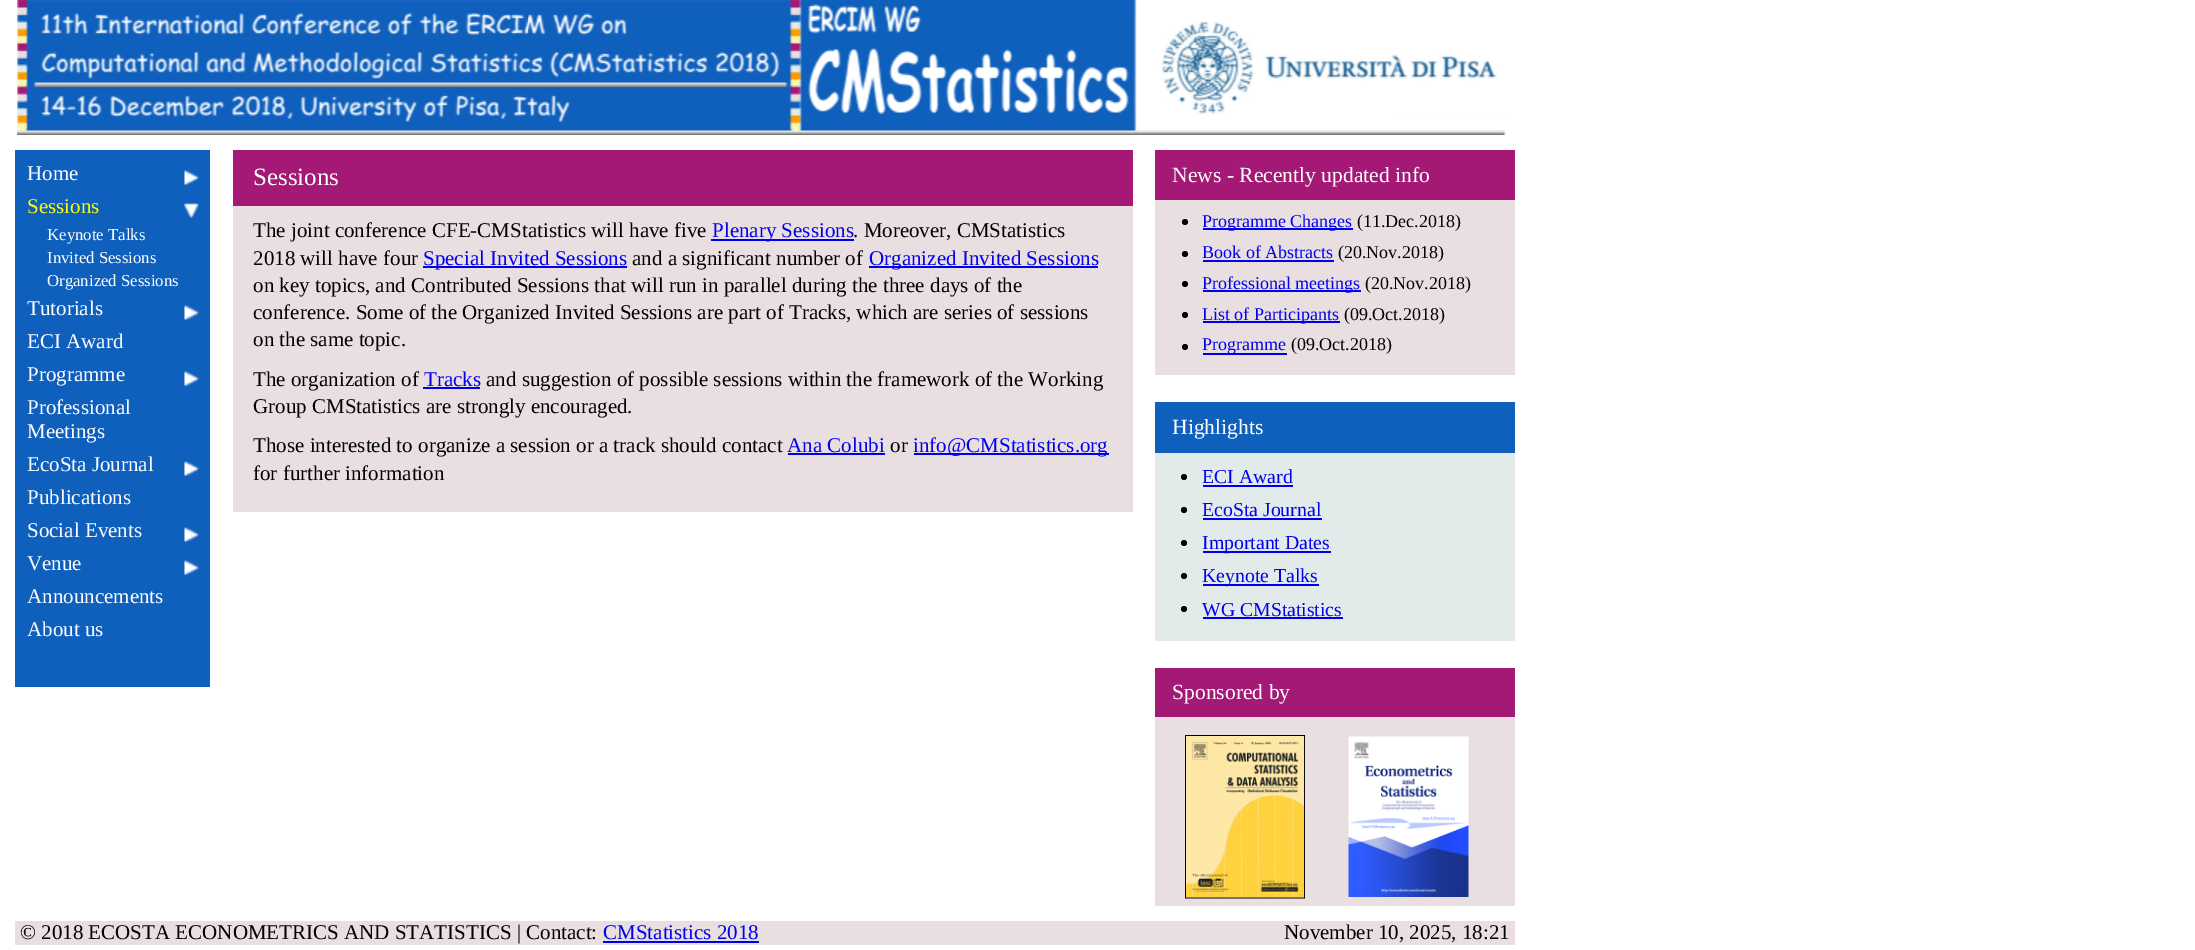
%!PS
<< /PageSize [2195 950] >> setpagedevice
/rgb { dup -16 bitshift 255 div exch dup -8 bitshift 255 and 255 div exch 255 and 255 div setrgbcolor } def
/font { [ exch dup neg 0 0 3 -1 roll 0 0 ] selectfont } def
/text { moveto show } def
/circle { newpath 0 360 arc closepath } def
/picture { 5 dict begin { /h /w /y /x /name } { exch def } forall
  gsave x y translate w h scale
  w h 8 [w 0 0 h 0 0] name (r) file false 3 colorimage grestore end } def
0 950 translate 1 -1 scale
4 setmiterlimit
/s1 { /LiberationSerif-Regular 21 font 16#FFFFFF rgb } def
/s2 { /LiberationSerif-Regular 21 font 16#FFFF00 rgb } def
/s3 { /LiberationSerif-Regular 16.75 font 16#FFFFFF rgb } def
/s4 { /LiberationSerif-Regular 25 font 16#FFFFFF rgb } def
/s5 { /LiberationSerif-Regular 21 font 16#000000 rgb } def
/s6 { /LiberationSerif-Regular 21 font 16#0000EE rgb } def
/s7 { /LiberationSerif-Regular 21.6 font 16#FFFFFF rgb } def
/s8 { /LiberationSerif-Regular 18 font 16#0000EE rgb } def
/s9 { /LiberationSerif-Regular 18 font 16#000000 rgb } def
/s10 { /LiberationSerif-Regular 19.75 font 16#0000EE rgb } def
16#FFFFFF rgb
0 0 2195 950 rectfill
(pic1.raw) 17 0 1489 135 picture
16#0F60BD rgb
15 150 195 537 rectfill
s1
(Home) 27 180 text
(pic2.raw) 184 170 15 15 picture
s2
(Sessions) 27 213 text
(pic3.raw) 184 203 15 15 picture
s3
(Keynote Talks) 47 240 text
(Invited Sessions) 47 263 text
(Organized Sessions) 47 286 text
s1
(Tutorials) 27 315 text
(pic2.raw) 184 305 15 15 picture
(ECI Award) 27 348 text
(Programme) 27 381 text
(pic2.raw) 184 371 15 15 picture
(Professional) 27 414 text
(Meetings) 27 438 text
(EcoSta Journal) 27 471 text
(pic2.raw) 184 461 15 15 picture
(Publications) 27 504 text
(Social Events) 27 537 text
(pic2.raw) 184 527 15 15 picture
(Venue) 27 570 text
(pic2.raw) 184 560 15 15 picture
(Announcements) 27 603 text
(About us) 27 636 text
16#E9DEE0 rgb
233 206 900 306 rectfill
16#A41976 rgb
233 150 900 56 rectfill
s4
(Sessions) 253 185 text
s5
(The joint conference CFE-CMStatistics will have five) 253 237 text
16#0000EE rgb
711 239 143 2 rectfill
(Plenary Sessions) 712 237 text
s5
(. Moreover, CMStatistics) 853 237 text
(2018 will have four) 253 265 text
16#0000EE rgb
423 266 204 2 rectfill
(Special Invited Sessions) 423 265 text
s5
(and a significant number of) 632 265 text
16#0000EE rgb
869 266 229 2 rectfill
(Organized Invited Sessions) 869 265 text
s5
(on key topics, and Contributed Sessions that will run in parallel during the three days of the) 253 292 text
(conference. Some of the Organized Invited Sessions are part of Tracks, which are series of sessions) 253 319 text
(on the same topic.) 253 346 text
(The organization of) 253 386 text
s6
(Tracks) 424 386 text
423 387 57 2 rectfill
s5
(and suggestion of possible sessions within the framework of the Working) 486 386 text
(Group CMStatistics are strongly encouraged.) 253 413 text
(Those interested to organize a session or a track should contact) 253 452 text
s6
(Ana Colubi) 787 452 text
788 453 97 2 rectfill
s5
(or) 890 452 text
16#0000EE rgb
914 453 195 2 rectfill
(info@CMStatistics.org) 913 452 text
s5
(for further information) 253 480 text
16#E9DEE0 rgb
1155 200 360 175 rectfill
16#A41976 rgb
1155 150 360 50 rectfill
s7
(News - Recently updated info) 1172 182 text
16#000000 rgb
1185 222 3 circle fill
16#0000EE rgb
1203 228 150 2 rectfill
s8
(Programme Changes) 1202 227 text
s9
(\(11.Dec.2018\)) 1357 227 text
1185 254 3 circle fill
s8
(Book of Abstracts) 1202 258 text
1203 260 131 2 rectfill
s9
(\(20.Nov.2018\)) 1338 258 text
1185 284 3 circle fill
16#0000EE rgb
1203 290 158 2 rectfill
(Professional meetings) 1202 289 text
s9
(\(20.Nov.2018\)) 1365 289 text
1185 315 3 circle fill
16#0000EE rgb
1203 321 137 2 rectfill
(List of Participants) 1202 320 text
s9
(\(09.Oct.2018\)) 1344 320 text
1185 347 3 circle fill
16#0000EE rgb
1203 353 84 2 rectfill
(Programme) 1202 350 text
s9
(\(09.Oct.2018\)) 1291 350 text
16#E2EBE9 rgb
1155 453 360 188 rectfill
16#0F60BD rgb
1155 402 360 51 rectfill
s7
(Highlights) 1172 434 text
16#000000 rgb
1184 477 3 circle fill
s10
(ECI Award) 1202 483 text
1203 485 90 2 rectfill
16#000000 rgb
1184 510 3 circle fill
s10
(EcoSta Journal) 1202 516 text
1203 518 119 2 rectfill
16#000000 rgb
1184 543 3 circle fill
16#0000EE rgb
1203 551 128 2 rectfill
(Important Dates) 1202 549 text
16#000000 rgb
1184 576 3 circle fill
16#0000EE rgb
1203 584 116 2 rectfill
(Keynote Talks) 1202 582 text
16#000000 rgb
1184 609 3 circle fill
s10
(WG CMStatistics) 1202 616 text
1203 617 140 2 rectfill
16#E9DEE0 rgb
1155 717 360 189 rectfill
16#A41976 rgb
1155 668 360 49 rectfill
s7
(Sponsored by) 1172 699 text
(pic4.raw) 1185 735 120 164 picture
(pic5.raw) 1348 736 121 161 picture
16#E9DEE0 rgb
15 921 1500 24 rectfill
s5
(© 2018 ECOSTA ECONOMETRICS AND STATISTICS | Contact:) 20 939 text
s6
(CMStatistics 2018) 603 939 text
603 941 156 2 rectfill
s5
(November 10, 2025, 18:21) 1284 939 text
showpage
